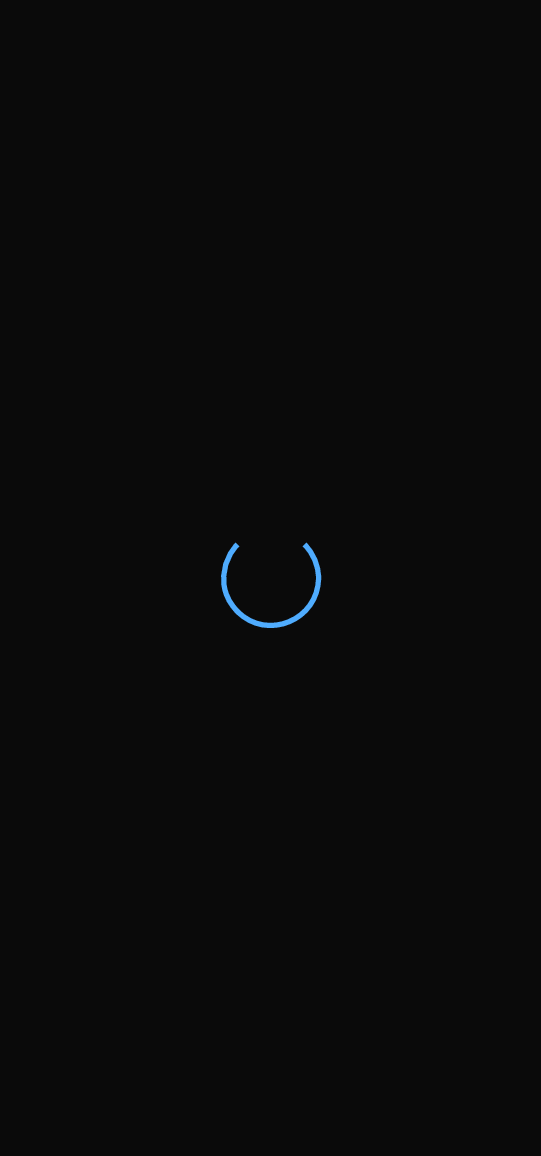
%!PS
<< /PageSize [541 1156] >> setpagedevice
/rgb { dup -16 bitshift 255 div exch dup -8 bitshift 255 and 255 div exch 255 and 255 div setrgbcolor } def
0 1156 translate 1 -1 scale
4 setmiterlimit
16#0A0A0A rgb
0 0 541 1156 rectfill
16#4FACFE rgb
5 setlinewidth
304.5 544.5 moveto 313.5 553.5 318.5 565.5 318.5 578 curveto 318.5 620 267 641.5 237.5 611.5 curveto 231 605 226 596.5 224.5 587.5 curveto 221.5 572 226.5 555.5 237.5 544.5 curveto stroke
showpage
